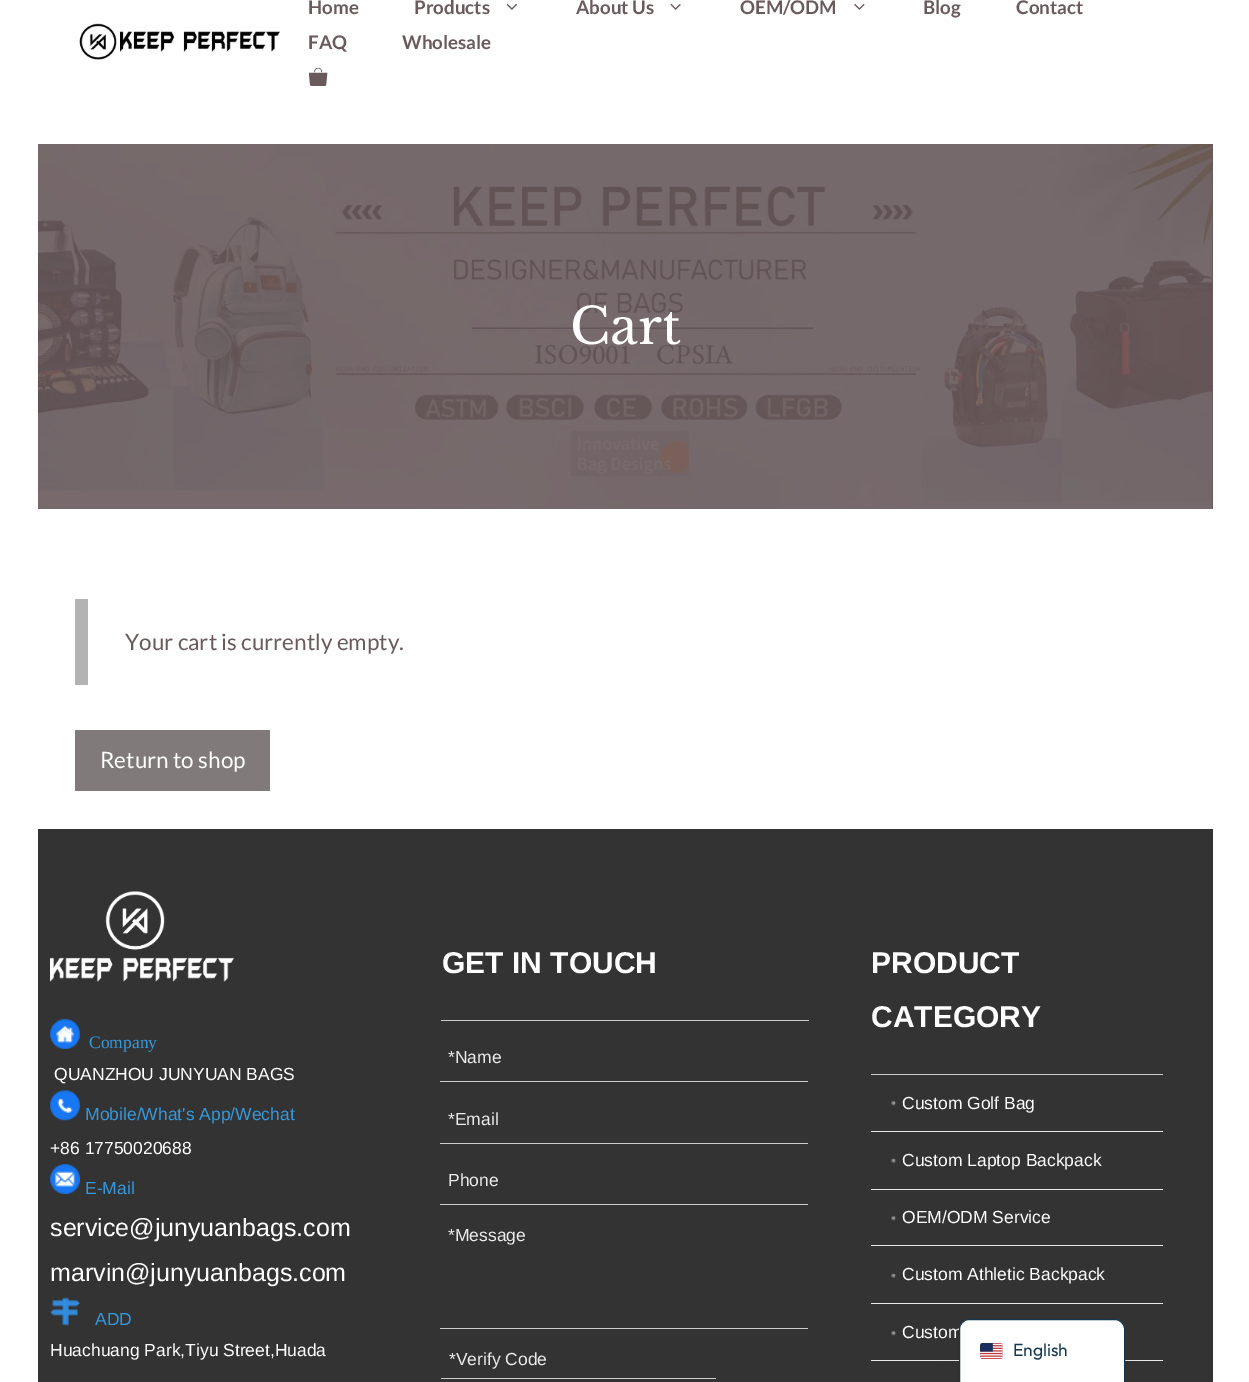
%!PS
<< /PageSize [1249 1382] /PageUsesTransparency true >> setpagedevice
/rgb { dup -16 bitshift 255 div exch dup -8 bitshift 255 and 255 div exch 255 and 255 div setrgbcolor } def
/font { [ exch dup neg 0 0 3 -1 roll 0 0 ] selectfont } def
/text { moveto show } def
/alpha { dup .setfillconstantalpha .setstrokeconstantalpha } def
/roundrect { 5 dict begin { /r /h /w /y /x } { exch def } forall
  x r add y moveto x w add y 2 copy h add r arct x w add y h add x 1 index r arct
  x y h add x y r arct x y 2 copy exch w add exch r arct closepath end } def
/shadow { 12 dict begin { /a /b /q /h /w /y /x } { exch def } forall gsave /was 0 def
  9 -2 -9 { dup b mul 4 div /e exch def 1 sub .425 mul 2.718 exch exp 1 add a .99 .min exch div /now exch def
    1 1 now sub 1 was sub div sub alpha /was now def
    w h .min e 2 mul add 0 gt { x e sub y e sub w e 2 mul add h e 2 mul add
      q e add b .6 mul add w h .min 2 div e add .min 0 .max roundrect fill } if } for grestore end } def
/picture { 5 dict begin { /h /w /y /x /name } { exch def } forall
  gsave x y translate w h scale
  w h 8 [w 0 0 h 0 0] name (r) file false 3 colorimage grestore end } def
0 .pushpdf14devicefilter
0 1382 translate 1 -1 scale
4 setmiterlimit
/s1 { /Lato-Bold 18.75 font 16#6B5A5B rgb } def
/s2 { /LibreBaskerville-Regular 50 font 16#FFFFFF rgb } def
/s3 { /Lato-Regular 22.5 font 16#6B5A5B rgb } def
/s4 { /Lato-Regular 22.5 font 16#FFFFFF rgb } def
/s5 { /LiberationSerif-Regular 17.5 font 16#3498DB rgb } def
/s6 { /LiberationSans-Regular 17.5 font 16#FFFFFF rgb } def
/s7 { /LiberationSans-Regular 17.5 font 16#3498DB rgb } def
/s8 { /LiberationSans-Regular 25 font 16#FFFFFF rgb } def
/s9 { /LiberationSans-Bold 30 font 16#FFFFFF rgb } def
/s10 { /LiberationSans-Regular 17.5 font 16#EDEBEB rgb } def
/s11 { /Outfit-Regular 17.5 font 16#143852 rgb } def
16#FFFFFF rgb
0 0 1249 1382 rectfill
(pic1.raw) 79 23 201 37 picture
s1
(Home) 308 14 text
(Products) 414 14 text
(pic2.raw) 506 3 11 7 picture
(About Us) 576 14 text
(pic3.raw) 670 3 11 7 picture
(OEM/ODM) 740 14 text
(pic4.raw) 854 3 11 7 picture
(Blog) 923 14 text
(Contact) 1016 14 text
(FAQ) 308 49 text
(Wholesale) 402 49 text
(pic5.raw) 309 68 19 18 picture
38 144 1175 365 rectfill
(pic6.raw) 37 144 1175 365 picture
s2
(Cart) 570 344 text
16#B3B3B3 rgb
75 599 13 86 rectfill
s3
(Your cart is currently empty.) 125 650 text
16#807A7A rgb
75 730 195 61 rectfill
s4
(Return to shop) 100 768 text
16#333333 rgb
38 829 1175 553 rectfill
(pic7.raw) 50 891 184 91 picture
(pic8.raw) 50 1019 30 30 picture
s5
(Company) 89 1048 text
s6
(QUANZHOU JUNYUAN BAGS) 54 1080 text
(pic9.raw) 50 1090 30 31 picture
s7
(Mobile/What's App/Wechat) 85 1120 text
s6
(+86 17750020688) 50 1154 text
(pic10.raw) 50 1164 30 30 picture
s7
(E-Mail) 85 1194 text
s8
(service@junyuanbags.com) 50 1236 text
(marvin@junyuanbags.com) 50 1281 text
(pic11.raw) 50 1297 30 29 picture
s7
(ADD) 95 1325 text
s6
(Huachuang Park,Tiyu Street,Huada) 50 1356 text
s9
(GET IN TOUCH) 442 973 text
16#CCCCCC rgb
441 1020 368 1 rectfill
440 1081 368 1 rectfill
s10
(*Name) 448 1063 text
16#CCCCCC rgb
440 1143 368 1 rectfill
s10
(*Email) 448 1125 text
16#CCCCCC rgb
440 1204 368 1 rectfill
s10
(Phone) 448 1186 text
16#CCCCCC rgb
440 1328 368 1 rectfill
s10
(*Message) 448 1241 text
16#CCCCCC rgb
441 1378 275 1 rectfill
s10
(*Verify Code) 449 1365 text
s9
(PRODUCT) 871 973 text
(CATEGORY) 871 1027 text
16#CCCCCC rgb
871 1074 292 1 rectfill
(pic12.raw) 891 1100 6 6 picture
s6
(Custom Golf Bag) 902 1109 text
16#EAE9E9 rgb
871 1131 292 1 rectfill
(pic13.raw) 891 1158 6 5 picture
s6
(Custom Laptop Backpack) 902 1166 text
16#EAE9E9 rgb
871 1189 292 1 rectfill
(pic12.raw) 891 1215 6 6 picture
s6
(OEM/ODM Service) 902 1223 text
16#EAE9E9 rgb
871 1245 292 1 rectfill
(pic13.raw) 891 1273 6 5 picture
s6
(Custom Athletic Backpack) 902 1280 text
16#EAE9E9 rgb
871 1303 292 1 rectfill
(pic12.raw) 891 1330 6 6 picture
s6
(Custom) 902 1338 text
16#EAE9E9 rgb
871 1360 292 1 rectfill
16#000000 rgb
959 1331 166 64 10 12.5 0.05 shadow
16#FFFFFF rgb
969 1319.5 moveto 1115 1319.5 lineto 1120 1319.5 1124.5 1324 1124.5 1329 curveto 1124.5 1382.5 lineto 959.5 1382.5 lineto 959.5 1329 lineto 959.5 1324 964 1319.5 969 1319.5 curveto closepath gsave fill grestore
16#143852 rgb
stroke
(pic14.raw) 980 1343 23 16 picture
s11
(English) 1013 1356 text
.poppdf14devicefilter showpage
